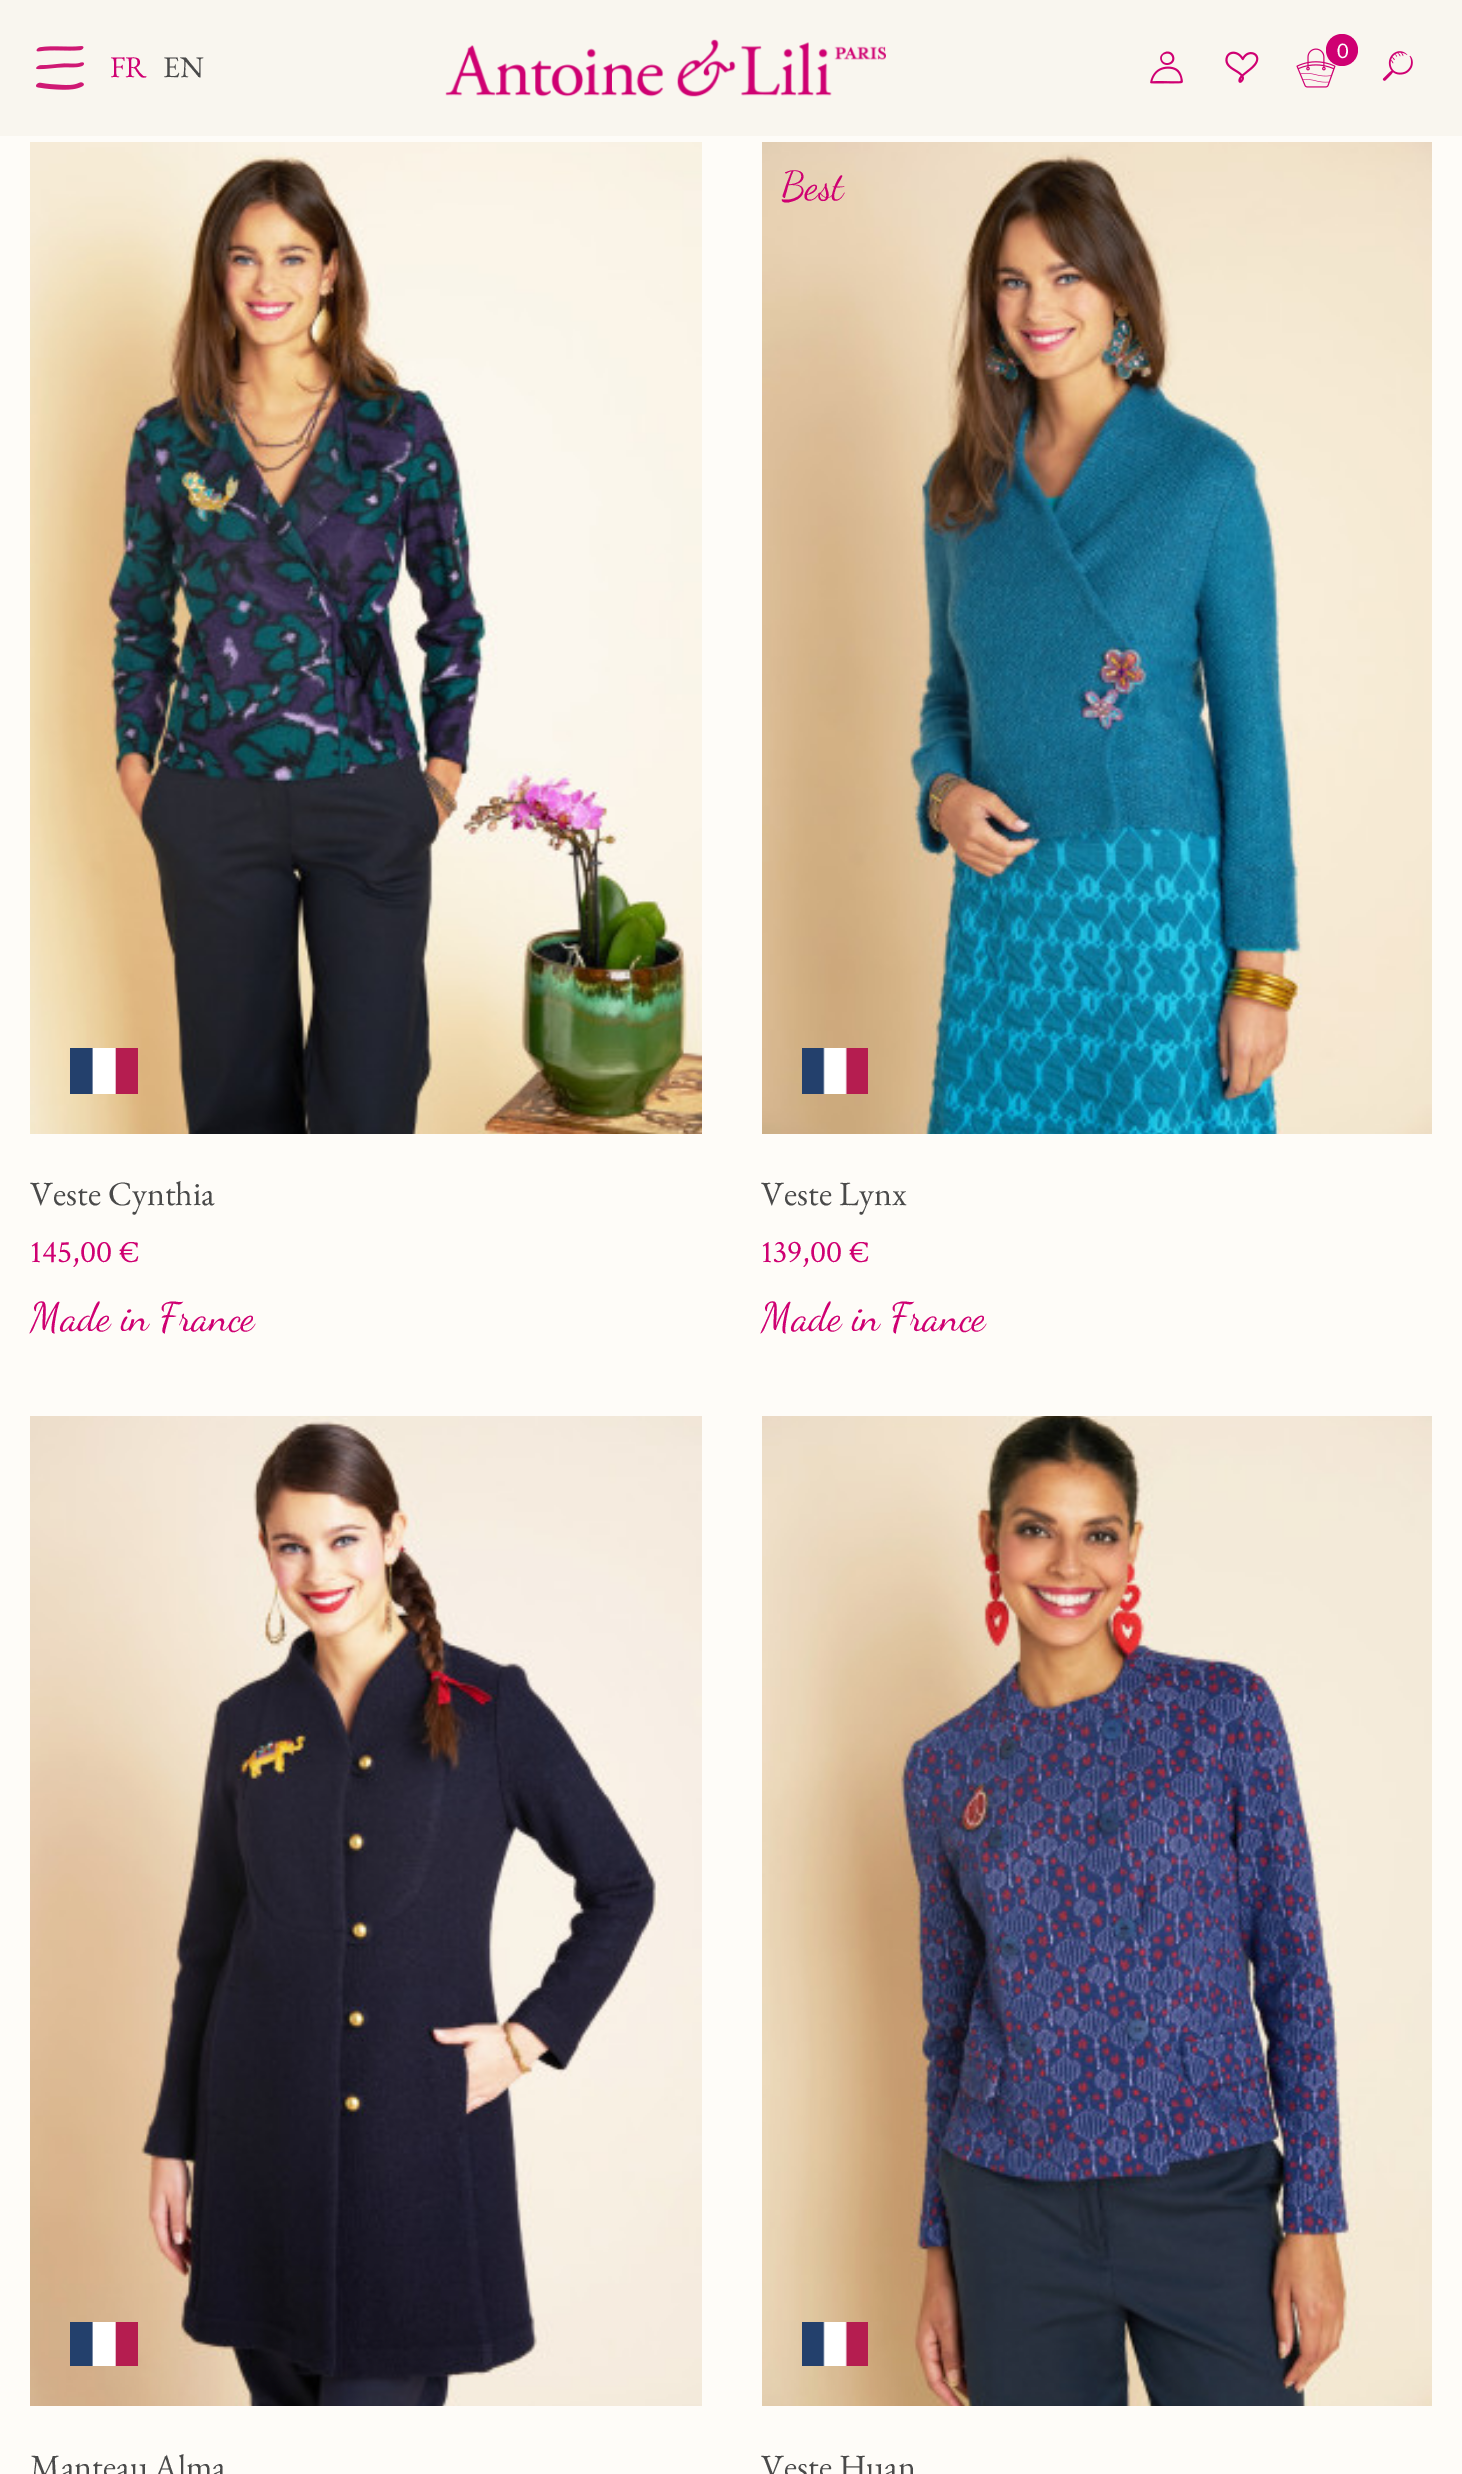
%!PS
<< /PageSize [1462 2474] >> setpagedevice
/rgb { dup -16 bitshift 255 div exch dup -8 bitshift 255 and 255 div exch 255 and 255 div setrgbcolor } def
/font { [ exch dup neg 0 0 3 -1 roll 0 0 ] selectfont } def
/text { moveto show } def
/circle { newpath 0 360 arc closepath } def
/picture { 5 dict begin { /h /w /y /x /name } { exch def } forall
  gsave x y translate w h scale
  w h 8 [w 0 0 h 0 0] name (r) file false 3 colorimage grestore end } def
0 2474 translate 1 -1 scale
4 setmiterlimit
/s1 { /EBGaramond-Regular 30 font 16#CF0072 rgb } def
/s2 { /EBGaramond-Regular 30 font 16#4A4A4A rgb } def
/s3 { /Lato-Regular 20 font 16#FFFFFF rgb } def
/s4 { /EBGaramond-Regular 34 font 16#4A4A4A rgb } def
/s5 { /CrimsonText-Regular 32 font 16#CF0072 rgb } def
/s6 { /DancingScript-Regular 40 font 16#CF0072 rgb } def
16#FEFCF8 rgb
0 0 1462 2474 rectfill
16#F9F6EF rgb
0 0 1462 136 rectfill
(pic1.raw) 36 46 48 44 picture
s1
(FR) 110 77 text
s2
(EN) 163 77 text
(pic2.raw) 445 39 441 58 picture
(pic3.raw) 1150 51 33 33 picture
(pic4.raw) 1225 51 34 32 picture
(pic5.raw) 1296 48 40 40 picture
16#CF0072 rgb
1342 50 16 circle fill
s3
(0) 1337 58 text
(pic6.raw) 1382 51 31 30 picture
(pic7.raw) 30 142 672 992 picture
(pic8.raw) 70 1048 68 46 picture
s4
(Veste Cynthia) 30 1205 text
s5
(145,00 €) 30 1262 text
s6
(Made in France) 30 1330 text
(pic9.raw) 762 142 670 992 picture
(Best) 781 199 text
(pic10.raw) 802 1048 66 46 picture
s4
(Veste Lynx) 761 1205 text
s5
(139,00 €) 761 1262 text
s6
(Made in France) 761 1330 text
(pic11.raw) 30 1416 672 990 picture
(pic12.raw) 70 2322 68 44 picture
s4
(Manteau Alma) 30 2478 text
(pic13.raw) 762 1416 670 990 picture
(pic14.raw) 802 2322 66 44 picture
(Veste Huan) 761 2478 text
showpage
